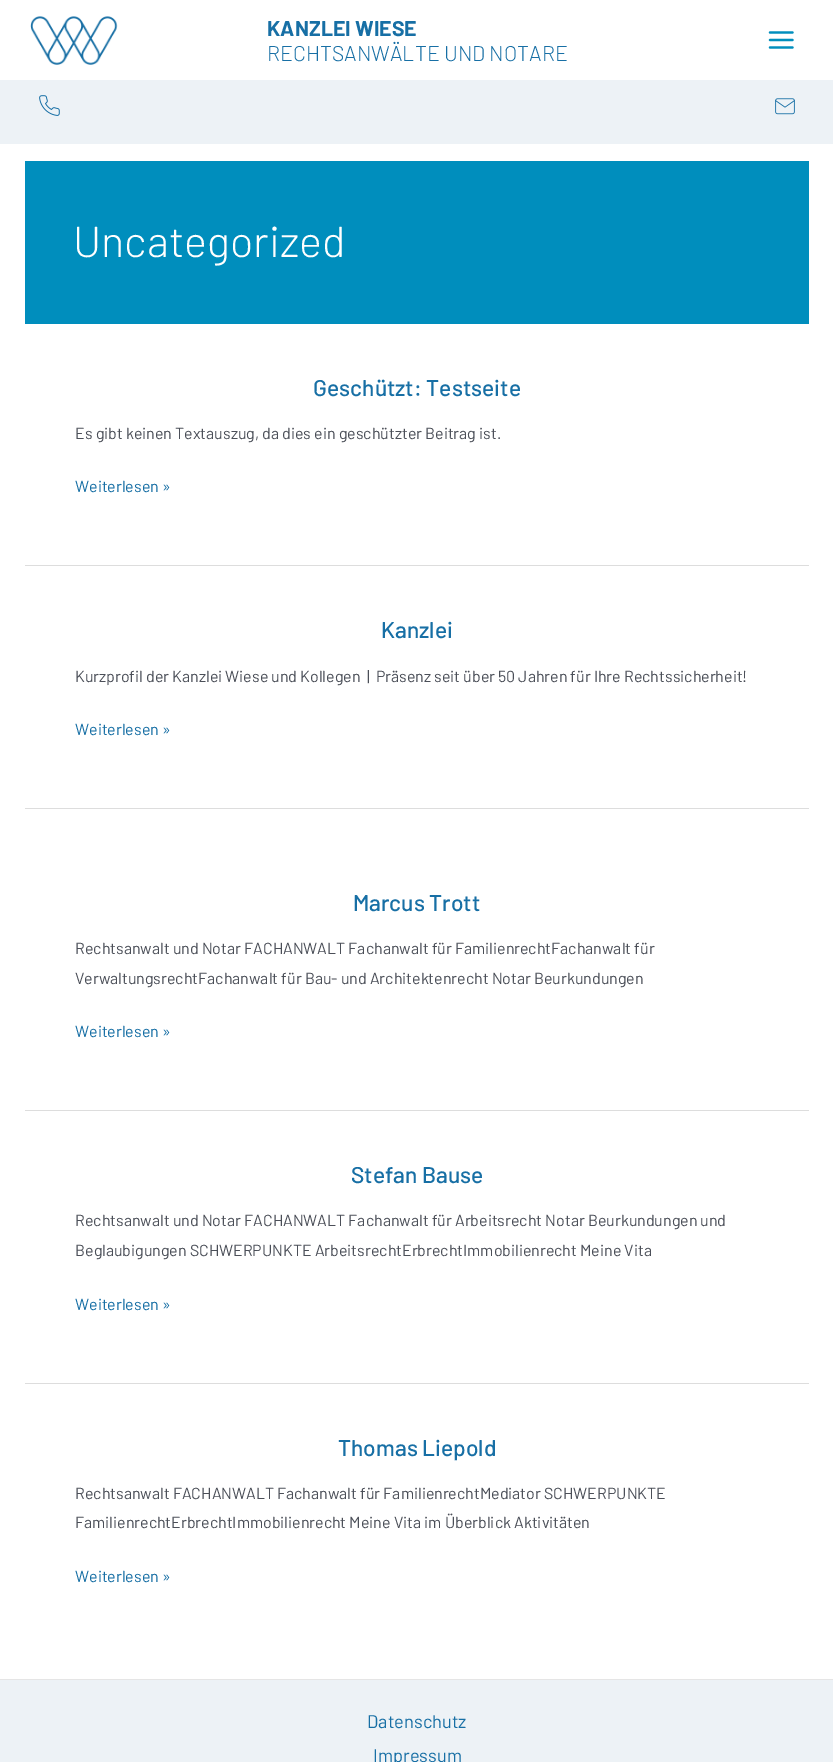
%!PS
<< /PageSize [833 1762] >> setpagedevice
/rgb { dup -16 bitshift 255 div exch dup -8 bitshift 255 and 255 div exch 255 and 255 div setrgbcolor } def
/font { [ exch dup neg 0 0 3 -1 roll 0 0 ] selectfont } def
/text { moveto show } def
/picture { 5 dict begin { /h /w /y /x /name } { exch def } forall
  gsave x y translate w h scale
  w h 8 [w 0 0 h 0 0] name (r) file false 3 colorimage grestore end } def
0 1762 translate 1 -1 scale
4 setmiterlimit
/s1 { /Barlow-Bold 21.25 font 16#176FA5 rgb } def
/s2 { /Barlow-Light 21.25 font 16#176FA5 rgb } def
/s3 { /Barlow-Light 43.25 font 16#FFFFFF rgb } def
/s4 { /Barlow-Medium 22.75 font 16#176FA5 rgb } def
/s5 { /Barlow-Regular 15.95 font 16#4B4F58 rgb } def
/s6 { /Barlow-Regular 15.95 font 16#176FA5 rgb } def
/s7 { /Barlow-Regular 18.25 font 16#176FA5 rgb } def
16#FFFFFF rgb
0 0 833 1762 rectfill
(pic1.raw) 30 16 88 49 picture
s1
(KANZLEI WIESE) 267 36 text
s2
(RECHTSANWÄLTE UND NOTARE) 267 61 text
(pic2.raw) 768 31 26 18 picture
16#EDF2F6 rgb
0 80 833 64 rectfill
(pic3.raw) 39 95 21 21 picture
(pic4.raw) 775 98 20 17 picture
16#008EBD rgb
25 161 784 163 rectfill
s3
(Uncategorized) 73 257 text
16#DDDDDD rgb
25 565 784 1 rectfill
s4
(Geschützt: Testseite) 313 396 text
s5
(Es gibt keinen Textauszug, da dies ein geschützter Beitrag ist.) 75 439 text
s6
(Weiterlesen ») 75 492 text
16#DDDDDD rgb
25 808 784 1 rectfill
s4
(Kanzlei) 381 638 text
s5
(Kurzprofil der Kanzlei Wiese und Kollegen  |  Präsenz seit über 50 Jahren für Ihre Rechtssicherheit!) 75 682 text
s6
(Weiterlesen ») 75 735 text
16#DDDDDD rgb
25 1110 784 1 rectfill
s4
(Marcus Trott) 353 911 text
s5
(Rechtsanwalt und Notar FACHANWALT Fachanwalt für FamilienrechtFachanwalt für) 75 954 text
(VerwaltungsrechtFachanwalt für Bau- und Architektenrecht Notar Beurkundungen) 75 984 text
s6
(Weiterlesen ») 75 1037 text
16#DDDDDD rgb
25 1383 784 1 rectfill
s4
(Stefan Bause) 351 1183 text
s5
(Rechtsanwalt und Notar FACHANWALT Fachanwalt für Arbeitsrecht Notar Beurkundungen und) 75 1226 text
(Beglaubigungen SCHWERPUNKTE ArbeitsrechtErbrechtImmobilienrecht Meine Vita) 75 1256 text
s6
(Weiterlesen ») 75 1310 text
s4
(Thomas Liepold) 338 1456 text
s5
(Rechtsanwalt FACHANWALT Fachanwalt für FamilienrechtMediator SCHWERPUNKTE) 75 1499 text
(FamilienrechtErbrechtImmobilienrecht Meine Vita im Überblick Aktivitäten) 75 1528 text
s6
(Weiterlesen ») 75 1582 text
16#EDF2F6 rgb
0 1680 833 82 rectfill
16#E5E5E5 rgb
0 1679 833 1 rectfill
s7
(Datenschutz) 367 1728 text
(Impressum) 373 1762 text
showpage
